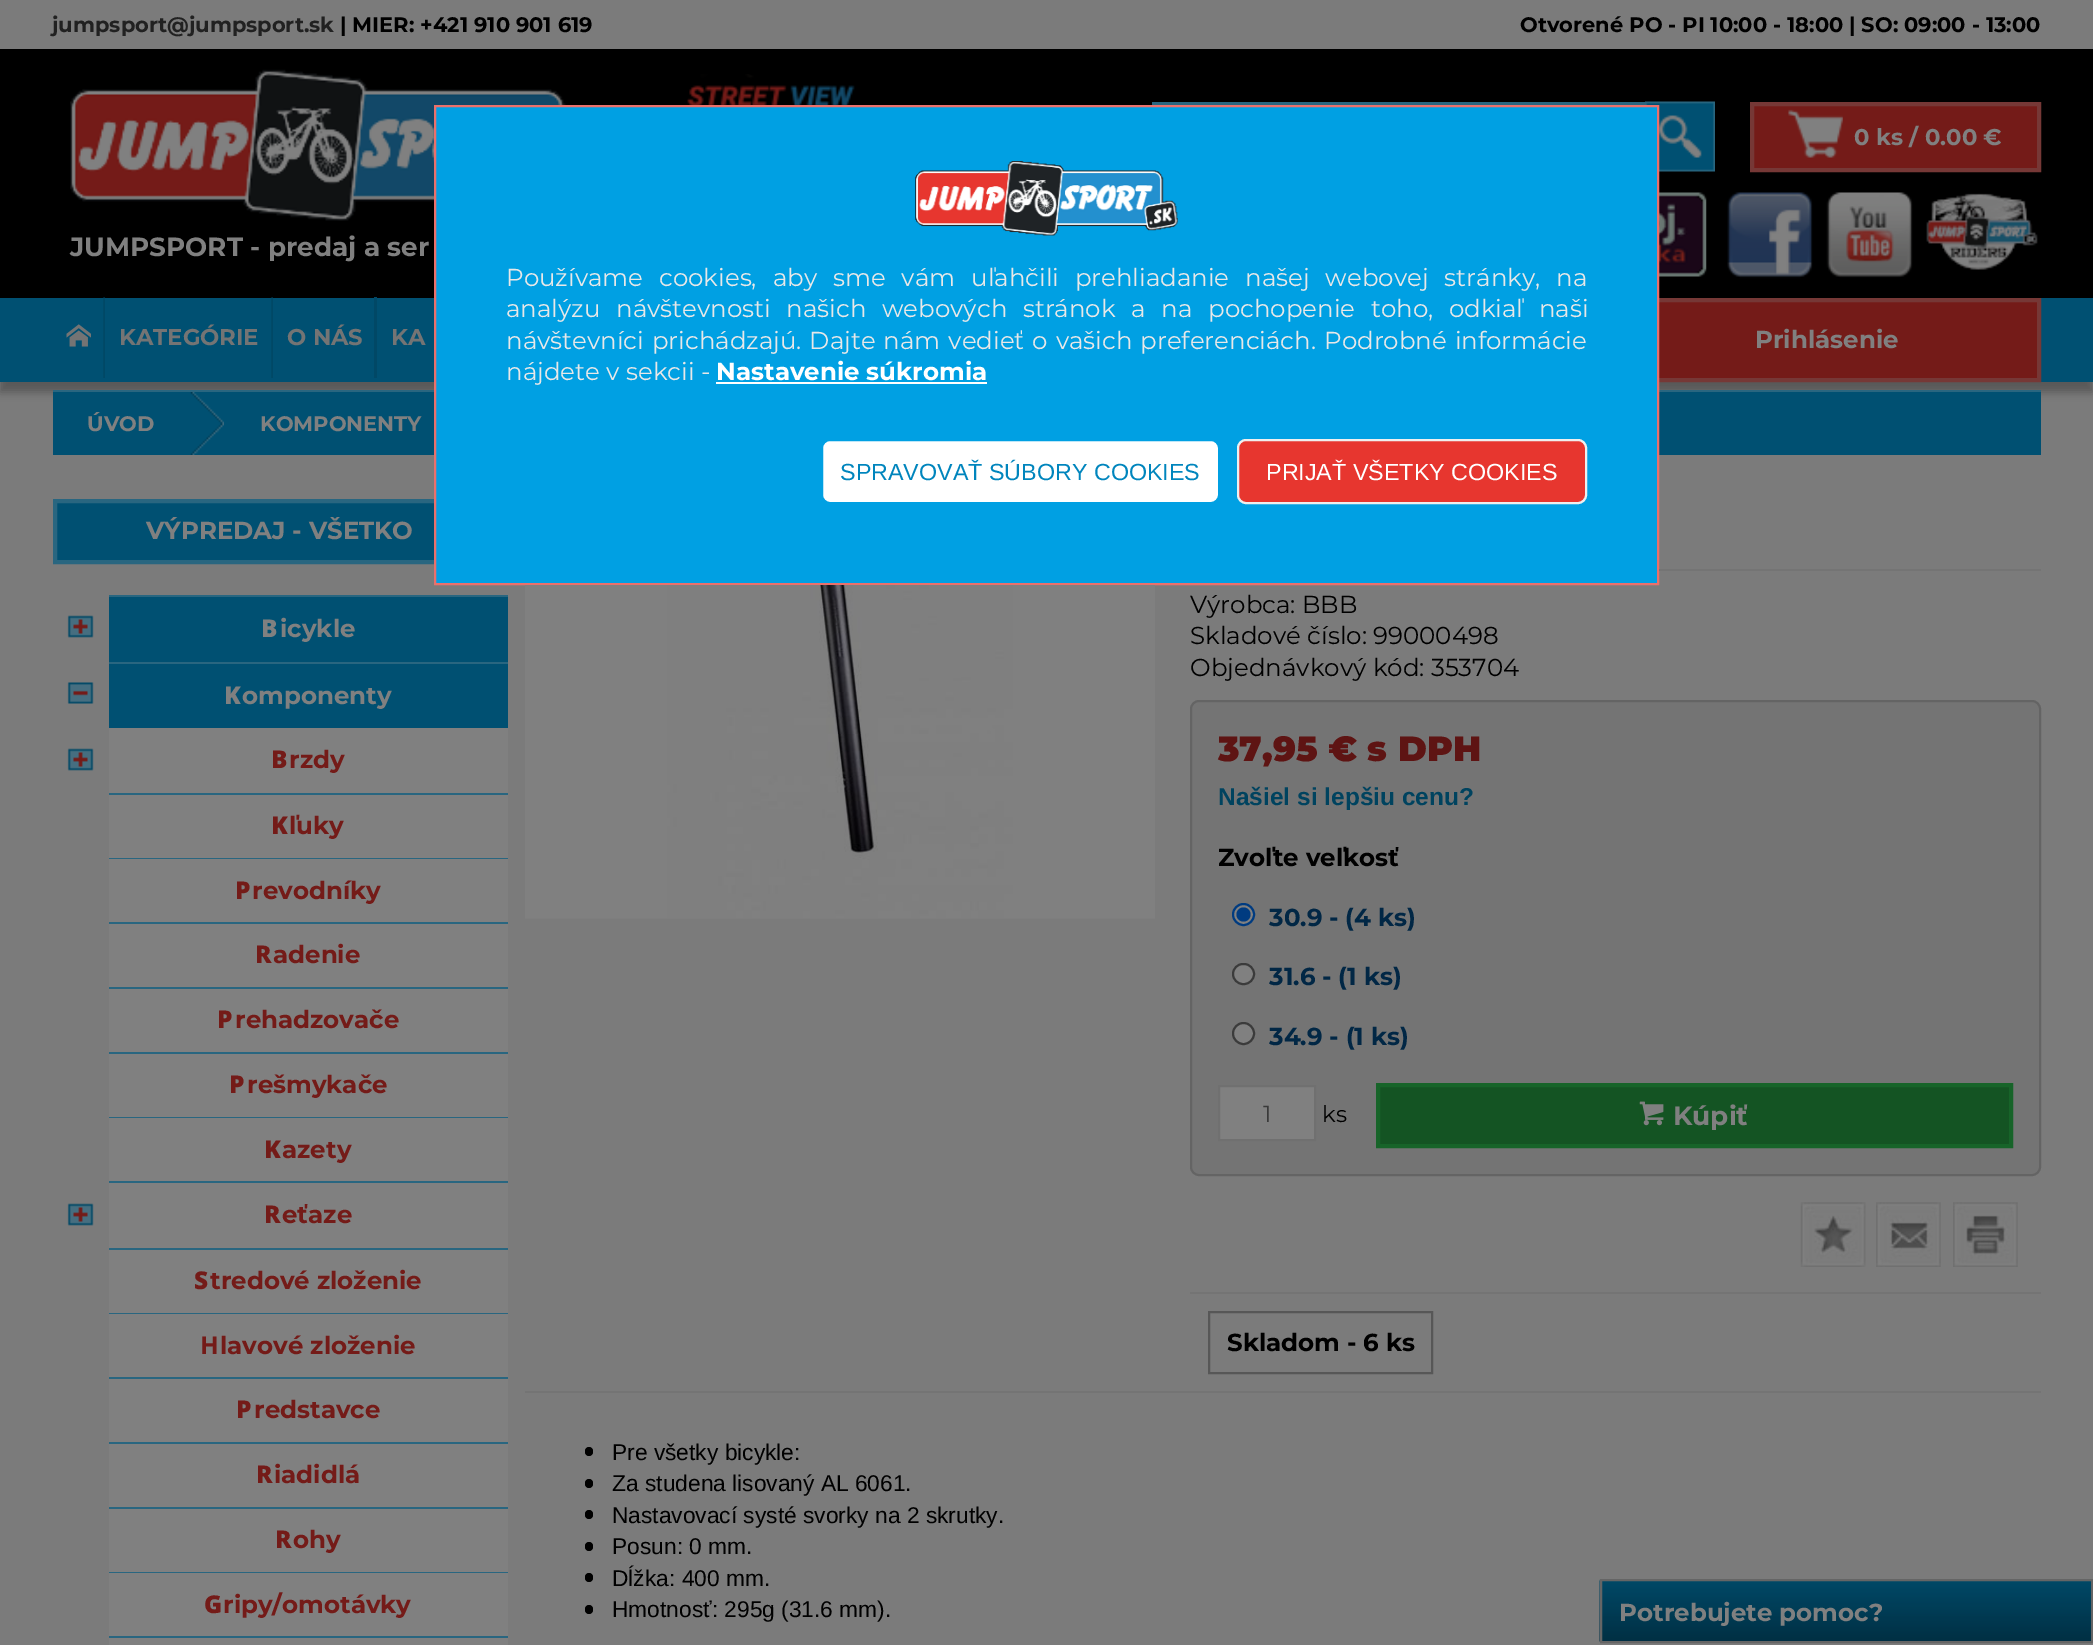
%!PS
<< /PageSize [2093 1645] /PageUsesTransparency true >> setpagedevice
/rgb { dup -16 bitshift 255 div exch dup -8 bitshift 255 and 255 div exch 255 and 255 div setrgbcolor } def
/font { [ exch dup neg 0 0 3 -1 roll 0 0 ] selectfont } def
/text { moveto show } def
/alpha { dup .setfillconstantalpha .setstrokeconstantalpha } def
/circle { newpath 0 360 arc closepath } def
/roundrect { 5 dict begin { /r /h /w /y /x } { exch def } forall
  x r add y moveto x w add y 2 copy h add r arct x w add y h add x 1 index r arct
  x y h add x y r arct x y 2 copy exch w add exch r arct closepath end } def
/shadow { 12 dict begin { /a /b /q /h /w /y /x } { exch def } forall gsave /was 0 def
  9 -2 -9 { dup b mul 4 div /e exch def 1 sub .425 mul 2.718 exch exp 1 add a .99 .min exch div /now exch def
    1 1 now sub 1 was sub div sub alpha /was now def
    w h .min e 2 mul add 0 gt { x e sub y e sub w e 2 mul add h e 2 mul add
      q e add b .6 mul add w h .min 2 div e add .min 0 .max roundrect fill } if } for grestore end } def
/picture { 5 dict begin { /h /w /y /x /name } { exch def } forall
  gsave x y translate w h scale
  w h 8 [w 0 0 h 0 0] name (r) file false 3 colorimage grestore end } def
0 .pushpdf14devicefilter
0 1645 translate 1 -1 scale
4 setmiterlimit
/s1 { /Montserrat-Bold 21 font 16#212121 rgb } def
/s2 { /Montserrat-Bold 21 font 16#000000 rgb } def
/s3 { /Montserrat-Bold 22.75 font 16#808080 rgb } def
/s4 { /Montserrat-Bold 26.25 font 16#808080 rgb } def
/s5 { /Montserrat-Bold 22.75 font 16#747474 rgb } def
/s6 { /Montserrat-Bold 24.5 font 16#808080 rgb } def
/s7 { /Montserrat-Regular 24.5 font 16#E8E8E8 rgb } def
/s8 { /Montserrat-Bold 24.5 font 16#FFFFFF rgb } def
/s9 { /LiberationSans-Regular 23.3 font 16#0085BD rgb } def
/s10 { /LiberationSans-Regular 23.3 font 16#FFFFFF rgb } def
/s11 { /Montserrat-Bold 21 font 16#808080 rgb } def
/s12 { /NotoSans-Black 24.5 font 16#808080 rgb } def
/s13 { /NotoSans-Black 24.5 font 16#741B18 rgb } def
/s14 { /Montserrat-Bold 24.5 font 16#741B18 rgb } def
/s15 { /NotoSans-Bold 24.5 font 16#741B18 rgb } def
/s16 { /Montserrat-Regular 24.5 font 16#000000 rgb } def
/s17 { /Montserrat-Black 35 font 16#5E1413 rgb } def
/s18 { /LiberationSans-Bold 24.5 font 16#00435F rgb } def
/s19 { /Montserrat-Bold 24.5 font 16#000000 rgb } def
/s20 { /Montserrat-Bold 24.5 font 16#012745 rgb } def
/s21 { /Montserrat-Regular 23.3 font 16#3A3A3A rgb } def
/s22 { /Montserrat-Regular 22.75 font 16#000000 rgb } def
/s23 { /LiberationSans-Regular 22.75 font 16#000000 rgb } def
16#7B7B7B rgb
0 0 2093 1645 rectfill
s1
(jumpsport@jumpsport.sk) 52 32 text
s2
(| MIER: +421 910 901 619) 340 32 text
(Otvorené PO - PI 10:00 - 18:00 | SO: 09:00 - 13:00) 1520 32 text
0 49 2093 249 rectfill
(pic1.raw) 687 74 168 31 picture
16#296680 rgb
4 setlinewidth
1154 104 489 66 rectstroke
(pic2.raw) 1645 101 70 71 picture
16#741B18 rgb
1752 104 moveto 2039 104 lineto 2039 170 lineto 1752 170 lineto closepath gsave fill grestore
16#763836 rgb
stroke
(pic3.raw) 1788 109 55 49 picture
s3
(0 ks / 0.00 €) 1854 145 text
(pic4.raw) 1659 192 48 85 picture
(pic5.raw) 1727 192 86 87 picture
(pic6.raw) 1826 192 87 86 picture
(pic7.raw) 1926 193 112 77 picture
(pic8.raw) 70 69 496 152 picture
s4
(JUMPSPORT - predaj a ser) 70 256 text
16#000000 rgb
0 308 2093 84 0 4.5 0.3 shadow
16#005072 rgb
0 298 2093 84 rectfill
(pic9.raw) 103 297 2 81 picture
(pic10.raw) 66 324 25 23 picture
(pic9.raw) 271 297 2 81 picture
s5
(KATEGÓRIE) 119 345 text
16#014866 rgb
374 297 3 81 rectfill
s5
(O NÁS) 287 345 text
(KA) 391 345 text
16#741B18 rgb
1659 302 378 76 rectfill
16#763836 rgb
1616 300 423 80 rectstroke
s6
(Prihlásenie) 1755 348 text
16#005072 rgb
53 392 1988 63 rectfill
16#296680 rgb
53 390 1988 2 rectfill
16#005072 rgb
57 503 377 57 rectfill
16#296680 rgb
55 501 451 61 rectstroke
16#00A0E3 rgb
435 106 moveto 1658 106 lineto 1658 584 lineto 435 584 lineto closepath gsave fill grestore
16#EB706B rgb
2 setlinewidth
stroke
(pic11.raw) 915 161 263 75 picture
/Montserrat-Regular 24.5 font
16#E8E8E8 rgb
506 286 moveto 9.5 0 32 (Používame cookies, aby sme vám uľahčili prehliadanie našej webovej stránky, na) widthshow
506 317 moveto 9.25 0 32 (analýzu návštevnosti našich webových stránok a na pochopenie toho, odkiaľ naši) widthshow
506 349 moveto 1.5 0 32 (návštevníci prichádzajú. Dajte nám vedieť o vašich preferenciách. Podrobné informácie) widthshow
(nájdete v sekcii -) 506 380 text
s8
(Nastavenie súkromia) 716 380 text
716 382 271 2 rectfill
822 440 397 63 8 roundrect gsave fill grestore
16#00A0E3 rgb
stroke
s9
(SPRAVOVAŤ SÚBORY COOKIES) 840 480 text
16#E7362F rgb
1238 440 348 63 8 roundrect gsave fill grestore
16#EFEFEF rgb
stroke
s10
(PRIJAŤ VŠETKY COOKIES) 1266 480 text
(pic12.raw) 190 392 34 63 picture
s11
(ÚVOD) 87 431 text
(KOMPONENTY) 260 431 text
s6
(VÝPREDAJ - VŠETKO) 146 539 text
(pic13.raw) 67 615 27 23 picture
16#005072 rgb
109 597 399 65 rectfill
16#296680 rgb
109 595 399 2 rectfill
s12
(B) 261 637 text
s6
(icykle) 280 637 text
(pic14.raw) 67 682 27 22 picture
16#005072 rgb
109 664 399 64 rectfill
16#296680 rgb
109 662 399 2 rectfill
s12
(K) 224 704 text
s6
(omponenty) 242 704 text
(pic13.raw) 67 748 27 23 picture
109 728 399 65 rectfill
16#296680 rgb
109 793 399 2 rectfill
s13
(B) 271 768 text
s14
(rzdy) 289 768 text
16#808080 rgb
109 795 399 63 rectfill
16#296680 rgb
109 858 399 1 rectfill
s13
(K) 271 834 text
s14
(ľuky) 289 834 text
16#808080 rgb
109 859 399 63 rectfill
16#296680 rgb
109 922 399 2 rectfill
s13
(P) 235 899 text
s14
(revodníky) 252 899 text
16#808080 rgb
109 924 399 63 rectfill
16#296680 rgb
109 987 399 2 rectfill
s13
(R) 255 963 text
s14
(adenie) 273 963 text
16#808080 rgb
109 989 399 63 rectfill
16#296680 rgb
109 1052 399 2 rectfill
s13
(P) 217 1028 text
s14
(rehadzovače) 235 1028 text
16#808080 rgb
109 1054 399 63 rectfill
16#296680 rgb
109 1117 399 1 rectfill
s13
(P) 229 1093 text
s14
(rešmykače) 247 1093 text
16#808080 rgb
109 1118 399 63 rectfill
16#296680 rgb
109 1181 399 2 rectfill
s13
(K) 264 1158 text
s14
(azety) 282 1158 text
(pic13.raw) 67 1203 27 23 picture
16#808080 rgb
109 1183 399 65 rectfill
16#296680 rgb
109 1248 399 2 rectfill
s13
(R) 264 1223 text
s14
(eťaze) 282 1223 text
16#808080 rgb
109 1250 399 63 rectfill
16#296680 rgb
109 1313 399 1 rectfill
s13
(S) 194 1289 text
s14
(tredové zloženie) 210 1289 text
16#808080 rgb
109 1314 399 63 rectfill
16#296680 rgb
109 1377 399 2 rectfill
s15
(H) 200 1354 text
s14
(lavové zloženie) 220 1354 text
16#808080 rgb
109 1379 399 63 rectfill
16#296680 rgb
109 1442 399 2 rectfill
s13
(P) 236 1418 text
s14
(redstavce) 254 1418 text
16#808080 rgb
109 1444 399 63 rectfill
16#296680 rgb
109 1507 399 2 rectfill
s13
(R) 256 1483 text
s14
(iadidlá) 274 1483 text
16#808080 rgb
109 1509 399 63 rectfill
16#296680 rgb
109 1572 399 1 rectfill
s13
(R) 275 1548 text
s14
(ohy) 293 1548 text
16#808080 rgb
109 1573 399 63 rectfill
16#296680 rgb
109 1636 399 2 rectfill
s13
(G) 204 1613 text
s14
(ripy/omotávky) 223 1613 text
16#808080 rgb
109 1638 399 7 rectfill
16#747474 rgb
525 1391 1516 2 rectfill
(pic15.raw) 525 585 630 334 picture
1659 569 382 2 rectfill
s16
(Výrobca: BBB) 1190 613 text
(Skladové číslo: 99000498) 1190 644 text
(Objednávkový kód: 353704) 1190 676 text
16#747474 rgb
1191 701 849 474 8 roundrect gsave fill grestore
16#646464 rgb
stroke
s17
(37,95 € s DPH) 1218 761 text
s18
(Našiel si lepšiu cenu?) 1218 805 text
s19
(Zvoľte veľkosť) 1218 866 text
16#808080 rgb
1243.5 914.5 10.5 circle gsave fill grestore
16#003B80 rgb
stroke
1243.5 914.5 7 circle fill
s20
(30.9 - \(4 ks\)) 1269 926 text
16#808080 rgb
1233 964 21 20 10 roundrect gsave fill grestore
16#3B3B3B rgb
stroke
s20
(31.6 - \(1 ks\)) 1269 985 text
16#808080 rgb
1243.5 1033.5 10.5 circle gsave fill grestore
16#3B3B3B rgb
stroke
s20
(34.9 - \(1 ks\)) 1269 1045 text
16#808080 rgb
1219 1086 moveto 1315 1086 lineto 1315 1140 lineto 1219 1140 lineto closepath gsave fill grestore
16#707070 rgb
stroke
s21
(1) 1263 1122 text
s22
(ks) 1322 1122 text
16#145423 rgb
1378 1085 moveto 2011 1085 lineto 2011 1146 lineto 1378 1146 lineto closepath gsave fill grestore
16#176429 rgb
4 setlinewidth
stroke
(pic16.raw) 1639 1101 25 25 picture
s4
(Kúpiť) 1673 1125 text
16#747474 rgb
1190 1292 851 2 rectfill
(pic17.raw) 1800 1202 66 65 picture
(pic18.raw) 1876 1202 65 65 picture
(pic19.raw) 1953 1202 65 65 picture
16#575757 rgb
2 setlinewidth
1209 1312 223 61 rectstroke
s19
(Skladom - 6 ks) 1227 1351 text
585 1447 8 9 4 roundrect fill
s23
(Pre všetky bicykle:) 612 1460 text
585 1479 8 9 4 roundrect fill
(Za studena lisovaný AL 6061.) 612 1491 text
585 1510 8 9 4 roundrect fill
(Nastavovací systé svorky na 2 skrutky.) 612 1523 text
585 1542 8 9 4 roundrect fill
(Posun: 0 mm.) 612 1554 text
585 1573 8 9 4 roundrect fill
(Dĺžka: 400 mm.) 612 1586 text
585 1605 8 9 4 roundrect fill
(Hmotnosť: 295g \(31.6 mm\).) 612 1617 text
(pic20.raw) 1599 1579 492 63 picture
16#656565 rgb
1601 1580 491 62 rectstroke
s6
(Potrebujete pomoc?) 1619 1621 text
.poppdf14devicefilter showpage
